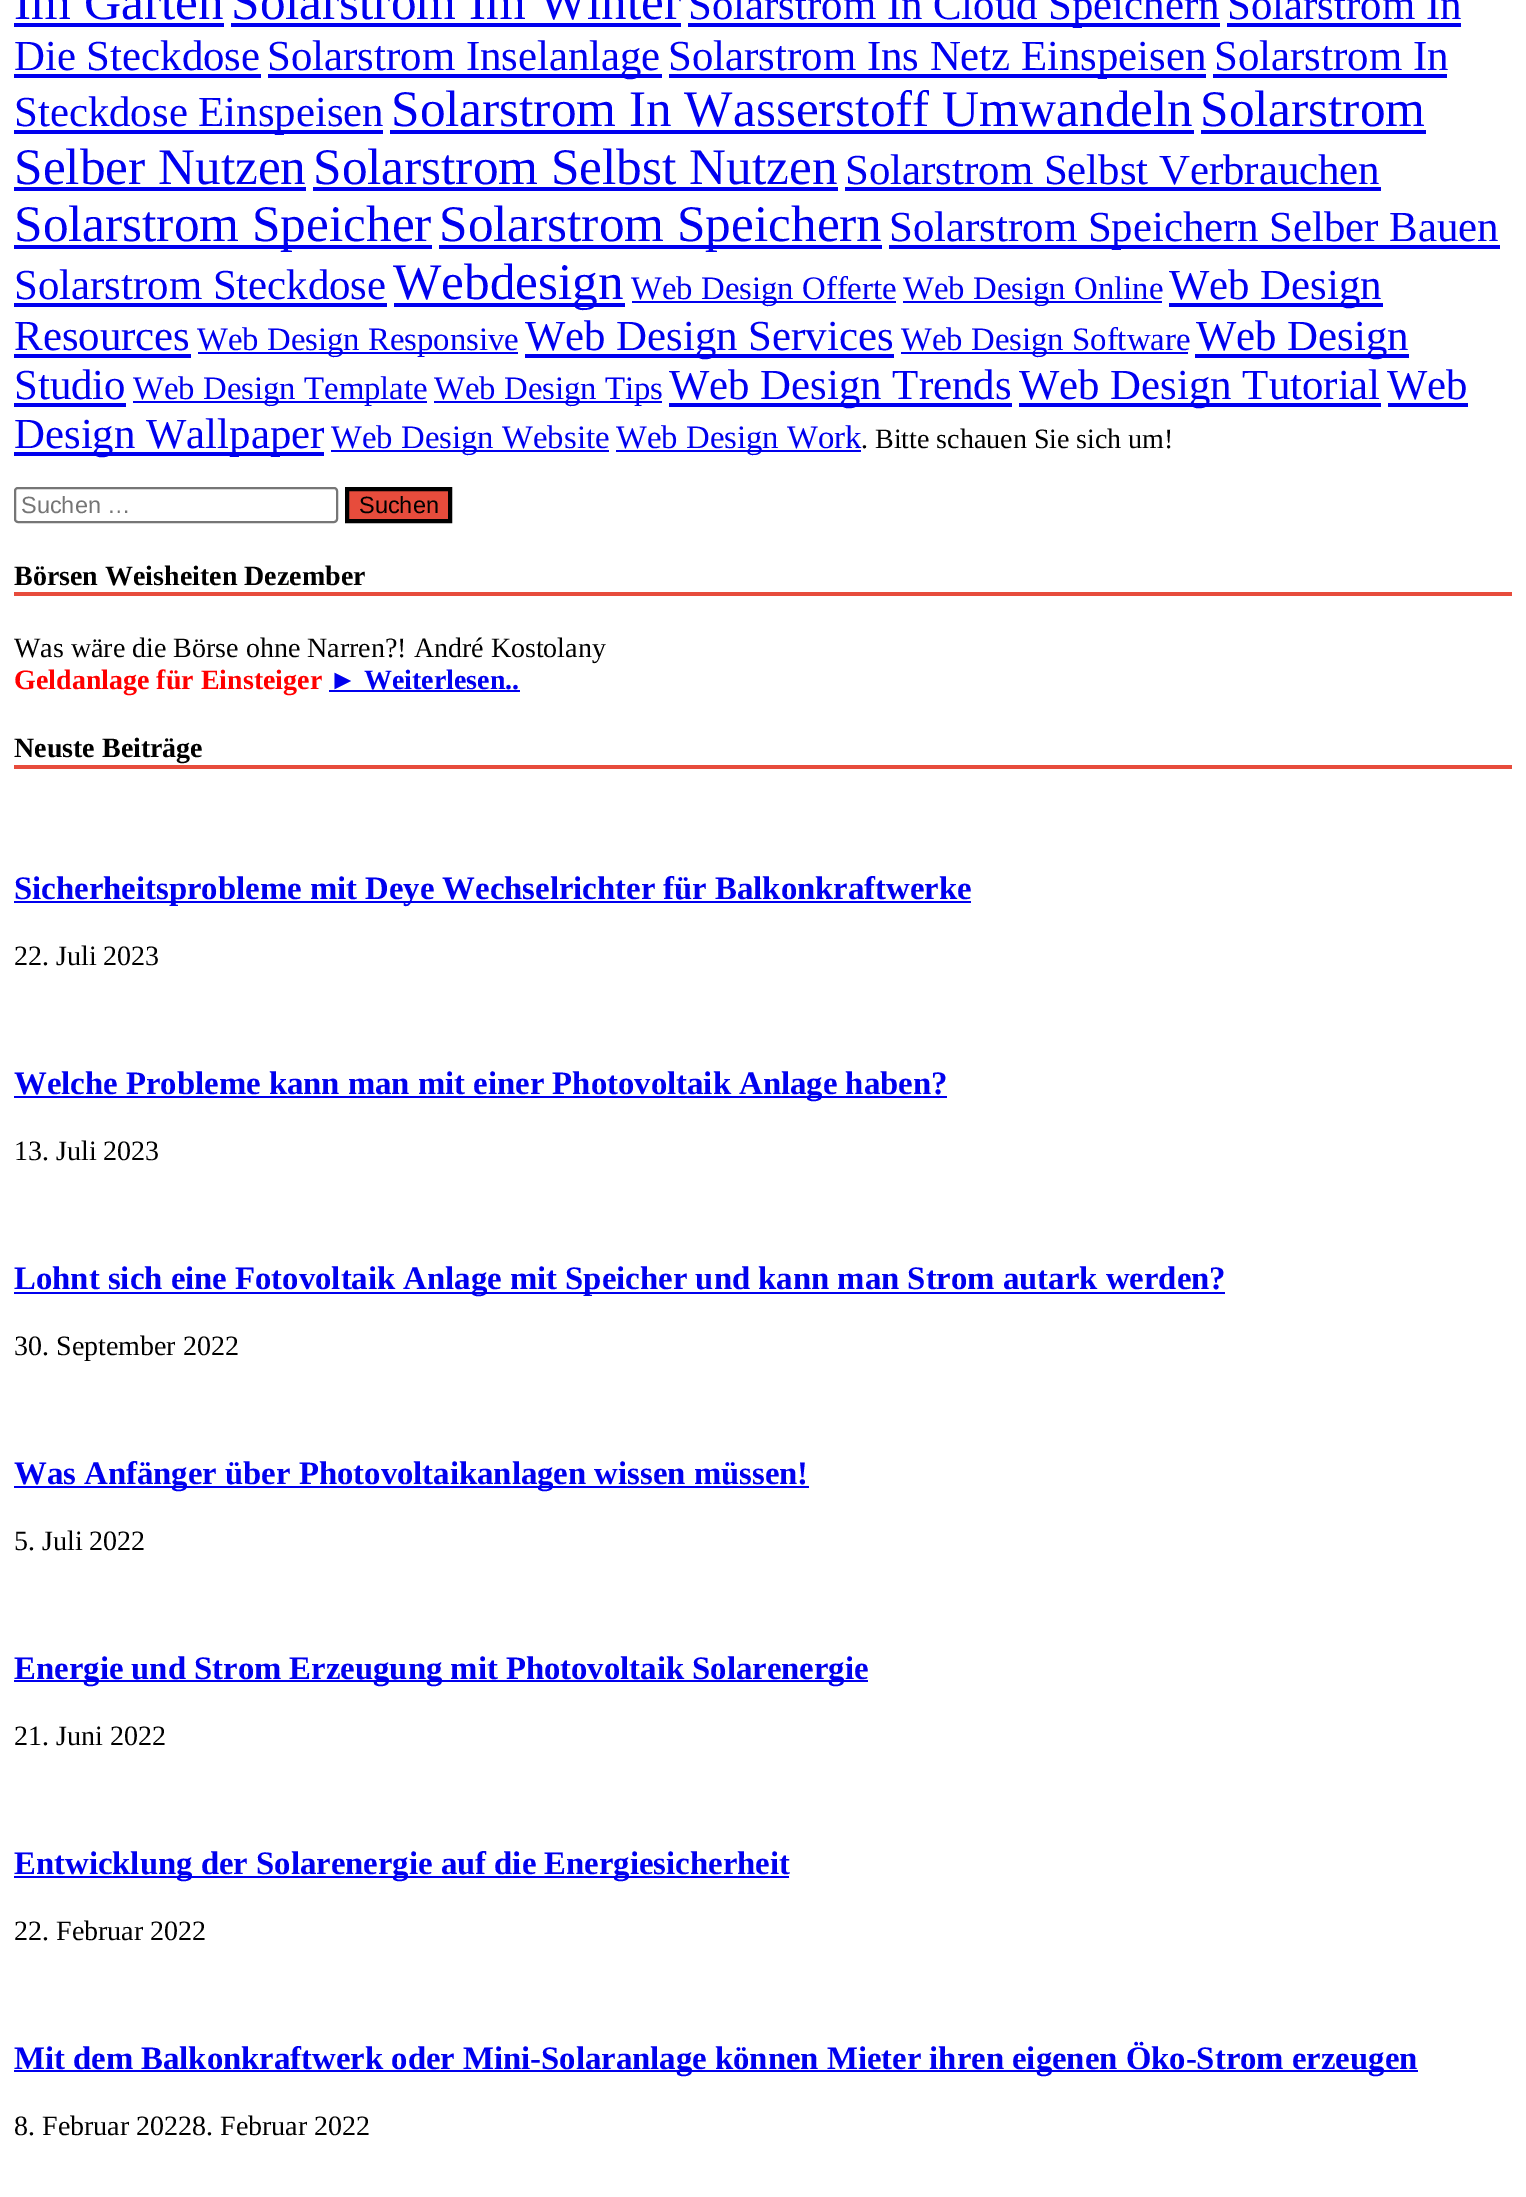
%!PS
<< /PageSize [1526 2197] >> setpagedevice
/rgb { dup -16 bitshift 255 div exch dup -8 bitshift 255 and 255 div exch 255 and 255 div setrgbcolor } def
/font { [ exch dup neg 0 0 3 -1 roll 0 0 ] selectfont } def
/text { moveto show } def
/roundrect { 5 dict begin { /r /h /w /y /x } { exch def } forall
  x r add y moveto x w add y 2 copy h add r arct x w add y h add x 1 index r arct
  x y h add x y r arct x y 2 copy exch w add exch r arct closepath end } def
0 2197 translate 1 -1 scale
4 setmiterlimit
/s1 { /LiberationSerif-Regular 51.3 font 16#0000EE rgb } def
/s2 { /LiberationSerif-Regular 42.8 font 16#0000EE rgb } def
/s3 { /LiberationSerif-Regular 32.75 font 16#0000EE rgb } def
/s4 { /LiberationSerif-Regular 28 font 16#000000 rgb } def
/s5 { /LiberationSans-Regular 23.5 font 16#757575 rgb } def
/s6 { /LiberationSans-Regular 23.5 font 16#000000 rgb } def
/s7 { /LiberationSerif-Bold 28 font 16#000000 rgb } def
/s8 { /LiberationSerif-Bold 28 font 16#FF0000 rgb } def
/s9 { /LiberationSerif-Bold 28 font 16#0000EE rgb } def
/s10 { /LiberationSerif-Bold 32.75 font 16#0000EE rgb } def
16#FFFFFF rgb
0 0 1526 2197 rectfill
s1
(Im Garten) 14 19 text
14 23 210 4 rectfill
(Solarstrom Im Winter) 231 19 text
231 23 450 4 rectfill
688 23 532 4 rectfill
s2
(Solarstrom In Cloud Speichern) 688 19 text
(Solarstrom In) 1227 19 text
1227 23 234 4 rectfill
(Die Steckdose) 14 70 text
14 74 247 4 rectfill
268 74 394 4 rectfill
(Solarstrom Inselanlage) 267 70 text
669 74 537 4 rectfill
(Solarstrom Ins Netz Einspeisen) 668 70 text
(Solarstrom In) 1214 70 text
1213 74 234 4 rectfill
14 130 369 4 rectfill
(Steckdose Einspeisen) 14 126 text
s1
(Solarstrom In Wasserstoff Umwandeln) 391 126 text
390 130 804 4 rectfill
(Solarstrom) 1200 126 text
1201 130 225 4 rectfill
(Selber Nutzen) 14 184 text
14 187 292 4 rectfill
(Solarstrom Selbst Nutzen) 313 184 text
313 187 525 4 rectfill
s2
(Solarstrom Selbst Verbrauchen) 845 184 text
845 187 536 4 rectfill
14 245 418 4 rectfill
s1
(Solarstrom Speicher) 14 241 text
439 245 443 4 rectfill
(Solarstrom Speichern) 439 241 text
889 245 611 4 rectfill
s2
(Solarstrom Speichern Selber Bauen) 889 241 text
(Solarstrom Steckdose) 14 299 text
14 303 373 4 rectfill
394 303 231 4 rectfill
s1
(Webdesign) 393 299 text
632 301 264 2 rectfill
s3
(Web Design Offerte) 631 299 text
903 301 259 2 rectfill
(Web Design Online) 903 299 text
1169 303 214 4 rectfill
s2
(Web Design) 1169 299 text
(Resources) 14 350 text
14 354 177 4 rectfill
198 352 320 2 rectfill
s3
(Web Design Responsive) 197 350 text
525 354 369 4 rectfill
s2
(Web Design Services) 525 350 text
901 352 287 2 rectfill
s3
(Web Design Software) 901 350 text
1195 354 214 4 rectfill
s2
(Web Design) 1196 350 text
(Studio) 14 399 text
14 403 112 4 rectfill
133 401 294 2 rectfill
s3
(Web Design Template) 133 399 text
434 401 228 2 rectfill
(Web Design Tips) 434 399 text
669 403 343 4 rectfill
s2
(Web Design Trends) 669 399 text
1019 403 362 4 rectfill
(Web Design Tutorial) 1019 399 text
(Web) 1387 399 text
1388 403 80 4 rectfill
14 452 310 4 rectfill
(Design Wallpaper) 14 448 text
331 450 278 2 rectfill
s3
(Web Design Website) 331 448 text
616 450 245 2 rectfill
(Web Design Work) 616 448 text
s4
(. Bitte schauen Sie sich um!) 861 448 text
16#767676 rgb
2 setlinewidth
15 488 322 34 3 roundrect stroke
s5
(Suchen …) 21 513 text
16#E74C3C rgb
347 489 moveto 450 489 lineto 450 521 lineto 347 521 lineto closepath gsave fill grestore
16#000000 rgb
4 setlinewidth
stroke
(Suchen) 359 513 text
16#E74C3C rgb
14 592 1498 4 rectfill
s7
(Börsen Weisheiten Dezember) 14 585 text
s4
(Was wäre die Börse ohne Narren?! André Kostolany) 14 657 text
s8
(Geldanlage für Einsteiger) 14 689 text
s9
(► Weiterlesen..) 329 689 text
329 690 191 2 rectfill
16#E74C3C rgb
14 765 1498 4 rectfill
s7
(Neuste Beiträge) 14 757 text
16#0000EE rgb
14 901 957 2 rectfill
s10
(Sicherheitsprobleme mit Deye Wechselrichter für Balkonkraftwerke) 14 899 text
s4
(22. Juli 2023) 14 965 text
16#0000EE rgb
14 1096 933 2 rectfill
s10
(Welche Probleme kann man mit einer Photovoltaik Anlage haben?) 14 1094 text
s4
(13. Juli 2023) 14 1160 text
16#0000EE rgb
14 1292 1211 2 rectfill
s10
(Lohnt sich eine Fotovoltaik Anlage mit Speicher und kann man Strom autark werden?) 14 1289 text
s4
(30. September 2022) 14 1355 text
16#0000EE rgb
14 1486 795 2 rectfill
s10
(Was Anfänger über Photovoltaikanlagen wissen müssen!) 14 1484 text
s4
(5. Juli 2022) 14 1550 text
16#0000EE rgb
14 1680 854 2 rectfill
/LiberationSerif-Bold 32.75 font
14 1679 moveto -0.1 0 32 (Energie und Strom Erzeugung mit Photovoltaik Solarenergie) widthshow
s4
(21. Juni 2022) 14 1745 text
16#0000EE rgb
14 1876 775 2 rectfill
s10
(Entwicklung der Solarenergie auf die Energiesicherheit) 14 1874 text
s4
(22. Februar 2022) 14 1940 text
16#0000EE rgb
14 2070 1404 2 rectfill
/LiberationSerif-Bold 32.75 font
14 2069 moveto -0.1 0 32 (Mit dem Balkonkraftwerk oder Mini-Solaranlage können Mieter ihren eigenen Öko-Strom erzeugen) widthshow
s4
(8. Februar 20228. Februar 2022) 14 2135 text
showpage
